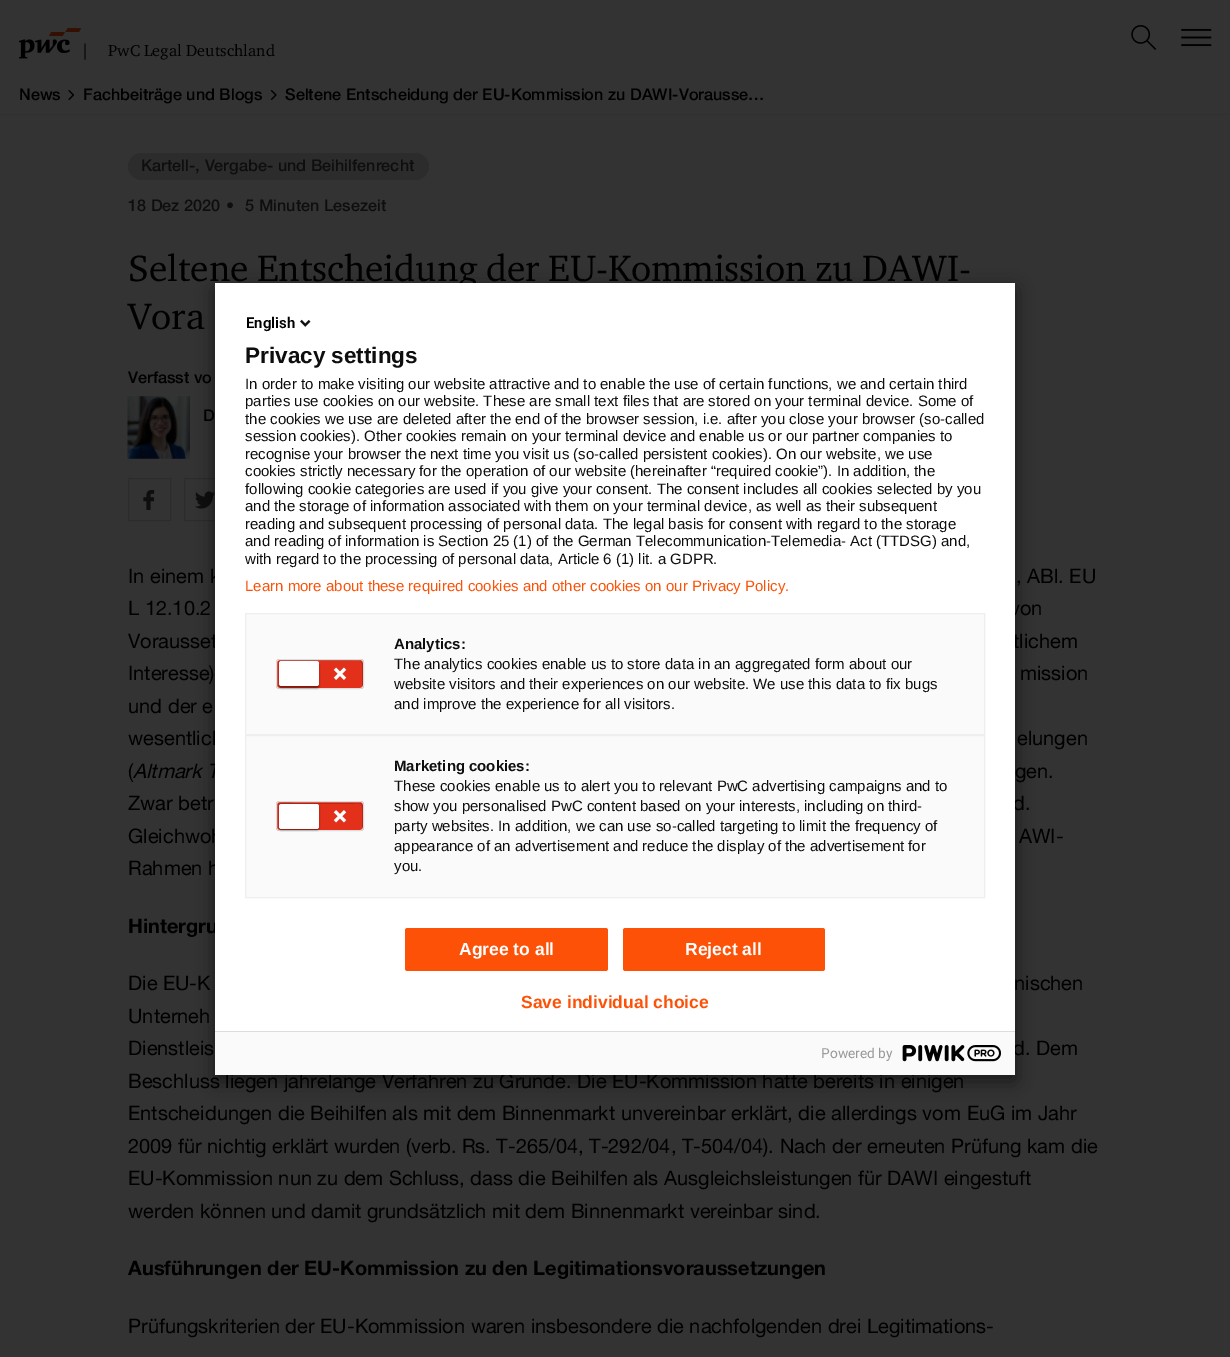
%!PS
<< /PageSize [1230 1357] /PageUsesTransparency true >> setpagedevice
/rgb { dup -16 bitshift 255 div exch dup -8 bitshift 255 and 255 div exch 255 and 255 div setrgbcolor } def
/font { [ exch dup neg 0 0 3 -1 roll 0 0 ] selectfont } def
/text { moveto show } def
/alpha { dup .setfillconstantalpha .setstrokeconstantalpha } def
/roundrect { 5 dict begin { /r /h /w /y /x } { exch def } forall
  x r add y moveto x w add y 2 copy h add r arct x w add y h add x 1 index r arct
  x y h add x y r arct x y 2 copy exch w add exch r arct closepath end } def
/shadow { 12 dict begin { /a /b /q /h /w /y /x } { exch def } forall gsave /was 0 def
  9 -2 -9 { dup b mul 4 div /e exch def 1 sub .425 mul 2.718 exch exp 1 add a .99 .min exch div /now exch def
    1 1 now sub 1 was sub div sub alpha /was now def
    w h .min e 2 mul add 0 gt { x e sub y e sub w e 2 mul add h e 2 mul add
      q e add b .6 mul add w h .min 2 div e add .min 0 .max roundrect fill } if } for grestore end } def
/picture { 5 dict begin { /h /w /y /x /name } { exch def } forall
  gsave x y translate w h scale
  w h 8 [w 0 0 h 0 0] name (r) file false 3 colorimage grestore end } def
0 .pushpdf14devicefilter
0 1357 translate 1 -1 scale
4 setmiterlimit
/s1 { /HelveticaNeue-Medium 16.25 font 16#000000 rgb } def
/s2 { /HelveticaNeue-Medium 16.25 font 16#0E0E0E rgb } def
/s3 { /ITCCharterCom-Regular 37.5 font 16#000000 rgb } def
/s4 { /HelveticaNeue-Regular 20 font 16#000000 rgb } def
/s5 { /HelveticaNeue-Italic 20 font 16#000000 rgb } def
/s6 { /HelveticaNeue-Bold 20 font 16#000000 rgb } def
/s7 { /Roboto-SemiBold 15 font 16#000000 rgb } def
/s8 { /LiberationSans-Bold 22.5 font 16#0E0E0E rgb } def
/s9 { /LiberationSans-Regular 15 font 16#0E0E0E rgb } def
/s10 { /LiberationSans-Regular 15 font 16#FD5108 rgb } def
/s11 { /LiberationSans-Bold 15 font 16#0E0E0E rgb } def
/s12 { /LiberationSans-Bold 17.5 font 16#FFFFFF rgb } def
/s13 { /LiberationSans-Bold 17.5 font 16#FD5108 rgb } def
/s14 { /Roboto-Regular 13.75 font 16#999999 rgb } def
16#333333 rgb
0 0 1230 1357 rectfill
(pic1.raw) 19 28 62 31 picture
/ITCCharterCom-Regular 16.25 font
16#000000 rgb
81 56 moveto 0.1 0 (|) ashow
108 56 moveto 0.1 0 (PwC Legal Deutschland) ashow
(pic2.raw) 1131 25 26 25 picture
(pic3.raw) 1181 28 31 19 picture
16#303030 rgb
0 114 1230 1 rectfill
s1
(News) 19 100 text
(pic4.raw) 68 90 6 10 picture
(Fachbeiträge und Blogs) 83 100 text
(pic5.raw) 270 90 7 10 picture
(Seltene Entscheidung der EU-Kommission zu DAWI-Vorausse…) 285 100 text
16#2C2C2C rgb
128 153 301 27 13.5 roundrect fill
s2
(Kartell-, Vergabe- und Beihilfenrecht) 141 171 text
(18 Dez 2020) 128 211 text
(•) 226 211 text
(5 Minuten Lesezeit) 245 211 text
s3
(Seltene Entscheidung der EU-Kommission zu DAWI-) 128 281 text
(Vora) 128 329 text
s1
(Verfasst vo) 128 383 text
(pic6.raw) 127 396 63 63 picture
(D) 203 421 text
16#2C2C2C rgb
128.5 478.5 42 42 rectstroke
(pic7.raw) 143 490 12 20 picture
184.5 478.5 43 42 rectstroke
(pic8.raw) 195 491 20 18 picture
s4
(In einem k) 128 583 text
(, ABl. EU) 1016 583 text
(L 12.10.2) 128 615 text
(von) 1010 615 text
(Vorausset) 128 648 text
(tlichem) 1013 648 text
(Interesse\)) 128 680 text
(mission) 1020 680 text
(und der e) 128 713 text
(wesentlich) 128 745 text
(elungen) 1017 745 text
(\() 128 778 text
s5
(Altmark T) 133 778 text
s4
(gen.) 1015 778 text
(Zwar betr) 128 810 text
(d.) 1013 810 text
(Gleichwoh) 128 843 text
(AWI-) 1019 843 text
(Rahmen h) 128 875 text
s6
(Hintergru) 128 933 text
s4
(Die EU-K) 128 990 text
(nischen) 1014 990 text
(Unterneh) 128 1023 text
(Dienstleis) 128 1055 text
(d. Dem) 1013 1055 text
(Beschluss liegen jahrelange Verfahren zu Grunde. Die EU-Kommission hatte bereits in einigen) 128 1088 text
(Entscheidungen die Beihilfen als mit dem Binnenmarkt unvereinbar erklärt, die allerdings vom EuG im Jahr) 128 1120 text
(2009 für nichtig erklärt wurden \(verb. Rs. T-265/04, T-292/04, T-504/04\). Nach der erneuten Prüfung kam die) 128 1153 text
(EU-Kommission nun zu dem Schluss, dass die Beihilfen als Ausgleichsleistungen für DAWI eingestuft) 128 1185 text
(werden können und damit grundsätzlich mit dem Binnenmarkt vereinbar sind.) 128 1218 text
s6
(Ausführungen der EU-Kommission zu den Legitimationsvoraussetzungen) 128 1275 text
s4
(Prüfungskriterien der EU-Kommission waren insbesondere die nachfolgenden drei Legitimations-) 128 1333 text
215 289 800 792 0 9.5 0.5 shadow
16#FFFFFF rgb
215 283 800 748 rectfill
s7
(English) 246 328 text
(pic9.raw) 300 319 11 8 picture
s8
(Privacy settings) 245 363 text
s9
(In order to make visiting our website attractive and to enable the use of certain functions, we and certain third) 245 389 text
(parties use cookies on our website. These are small text files that are stored on your terminal device. Some of) 245 406 text
(the cookies we use are deleted after the end of the browser session, i.e. after you close your browser \(so-called) 245 424 text
(session cookies\). Other cookies remain on your terminal device and enable us or our partner companies to) 245 441 text
(recognise your browser the next time you visit us \(so-called persistent cookies\). On our website, we use) 245 459 text
(cookies strictly necessary for the operation of our website \(hereinafter “required cookie”\). In addition, the) 245 476 text
(following cookie categories are used if you give your consent. The consent includes all cookies selected by you) 245 494 text
(and the storage of information associated with them on your terminal device, as well as their subsequent) 245 511 text
(reading and subsequent processing of personal data. The legal basis for consent with regard to the storage) 245 529 text
(and reading of information is Section 25 \(1\) of the German Telecommunication-Telemedia- Act \(TTDSG\) and,) 245 546 text
(with regard to the processing of personal data, Article 6 \(1\) lit. a GDPR.) 245 564 text
s10
(Learn more about these required cookies and other cookies on our Privacy Policy.) 245 591 text
16#FAFAFA rgb
245.5 613.5 moveto 984.5 613.5 lineto 984.5 734.5 lineto 245.5 734.5 lineto closepath gsave fill grestore
16#EEEEEE rgb
stroke
16#E3301B rgb
276 659 88 30 4 roundrect fill
16#B62616 rgb
280 661 moveto 347 661 lineto 363 661 362 658 362 671 curveto 362 688 lineto 364 686 363 677 363 674 curveto 363 657 366 660 347 660 curveto 294 660 lineto 288 660 278 656 278 664 curveto 278 662 279 661 280 661 curveto closepath fill
16#DDDDDD rgb
276.5 659.5 87 29 3.5 roundrect stroke
16#000000 rgb
279 663 40 25 2.5 1 0.5 shadow
16#FFFFFF rgb
279 661 40 25 2.5 roundrect fill
(pic10.raw) 333 667 14 13 picture
s11
(Analytics:) 394 649 text
s9
(The analytics cookies enable us to store data in an aggregated form about our) 394 669 text
(website visitors and their experiences on our website. We use this data to fix bugs) 394 689 text
(and improve the experience for all visitors.) 394 709 text
16#FAFAFA rgb
245.5 735.5 moveto 984.5 735.5 lineto 984.5 897.5 lineto 245.5 897.5 lineto closepath gsave fill grestore
16#EEEEEE rgb
stroke
16#E3301B rgb
276 801 88 30 4 roundrect fill
16#B62616 rgb
280 804 moveto 347 804 lineto 363 804 362 800 362 814 curveto 362 830 lineto 364 828 363 819 363 816 curveto 363 800 366 803 347 803 curveto 294 803 lineto 294 803 278 799 278 806 curveto 278 805 279 804 280 804 curveto closepath fill
16#DDDDDD rgb
276.5 801.5 87 29 3.5 roundrect stroke
16#000000 rgb
279 805 40 25 2.5 1 0.5 shadow
16#FFFFFF rgb
279 804 40 25 2.5 roundrect fill
(pic11.raw) 333 810 14 13 picture
s11
(Marketing cookies:) 394 771 text
s9
(These cookies enable us to alert you to relevant PwC advertising campaigns and to) 394 791 text
(show you personalised PwC content based on your interests, including on third-) 394 811 text
(party websites. In addition, we can use so-called targeting to limit the frequency of) 394 831 text
(appearance of an advertisement and reduce the display of the advertisement for) 394 851 text
(you.) 394 871 text
16#FD5108 rgb
405 928 203 43 2.5 roundrect fill
s12
(Agree to all) 459 955 text
16#FD5108 rgb
623 928 202 43 2.5 roundrect fill
s12
(Reject all) 685 955 text
s13
(Save individual choice) 521 1008 text
16#FAFAFA rgb
215 1032 800 43 rectfill
16#DDDDDD rgb
215 1031 800 1 rectfill
s14
(Powered by) 821 1058 text
(pic12.raw) 902 1045 99 17 picture
.poppdf14devicefilter showpage
